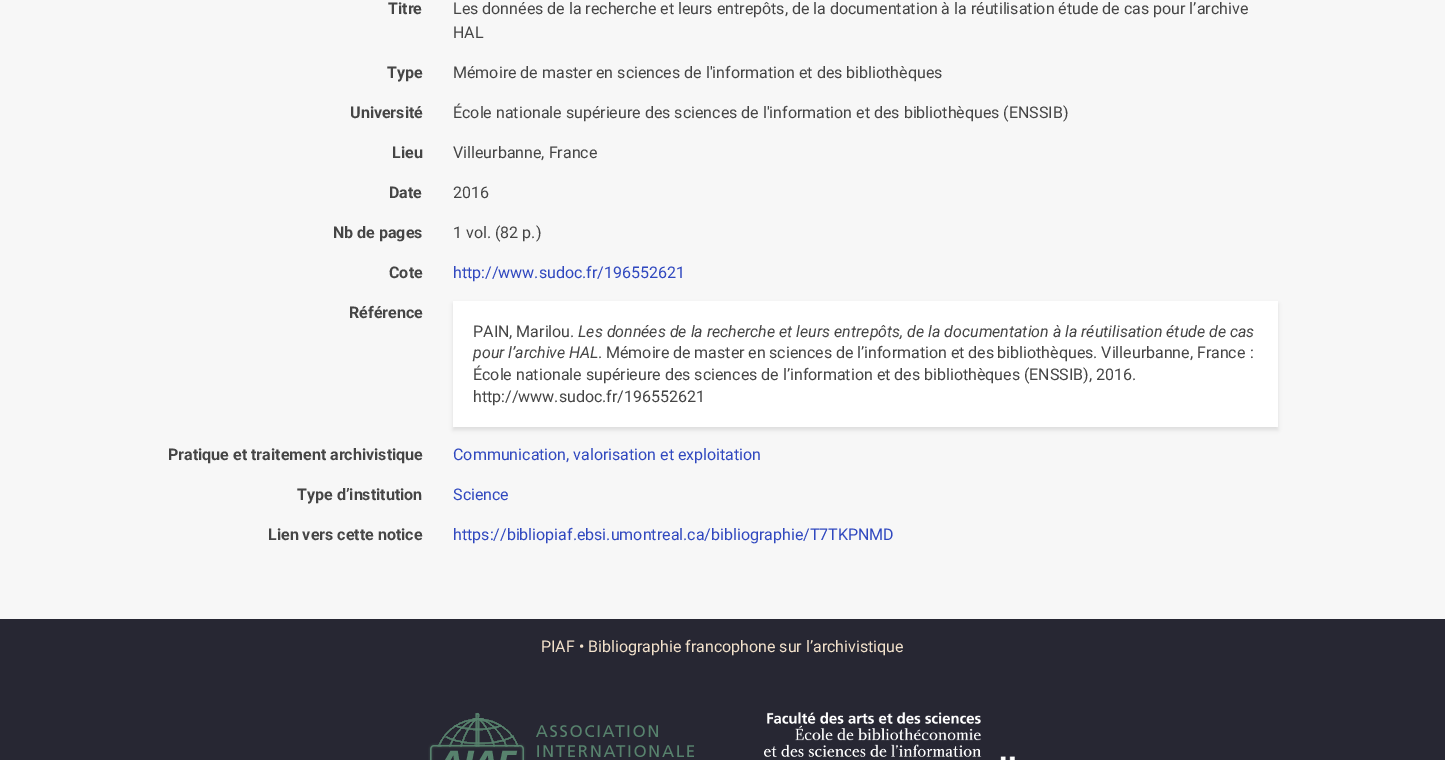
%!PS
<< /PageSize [1445 760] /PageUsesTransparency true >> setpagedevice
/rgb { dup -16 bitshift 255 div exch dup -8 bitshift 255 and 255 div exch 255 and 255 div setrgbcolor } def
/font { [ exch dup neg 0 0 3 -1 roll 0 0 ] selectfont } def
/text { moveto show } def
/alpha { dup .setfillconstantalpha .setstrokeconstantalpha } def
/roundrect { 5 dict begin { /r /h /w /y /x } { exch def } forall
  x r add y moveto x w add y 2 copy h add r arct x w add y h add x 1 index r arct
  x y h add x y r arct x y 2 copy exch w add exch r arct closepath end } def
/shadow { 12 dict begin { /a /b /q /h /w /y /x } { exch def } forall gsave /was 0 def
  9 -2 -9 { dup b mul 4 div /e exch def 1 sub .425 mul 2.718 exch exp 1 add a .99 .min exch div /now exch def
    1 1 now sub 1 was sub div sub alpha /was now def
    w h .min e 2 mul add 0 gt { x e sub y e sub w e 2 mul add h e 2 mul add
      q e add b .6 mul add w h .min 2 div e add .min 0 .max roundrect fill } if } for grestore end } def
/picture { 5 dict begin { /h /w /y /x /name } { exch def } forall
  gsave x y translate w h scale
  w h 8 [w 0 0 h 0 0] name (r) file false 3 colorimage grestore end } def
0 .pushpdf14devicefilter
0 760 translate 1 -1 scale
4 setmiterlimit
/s1 { /Roboto-Bold 16 font 16#454545 rgb } def
/s2 { /Roboto-Regular 16 font 16#454545 rgb } def
/s3 { /Roboto-Regular 16 font 16#3048BF rgb } def
/s4 { /Roboto-Italic 16 font 16#454545 rgb } def
/s5 { /Roboto-Regular 16 font 16#F2E1CB rgb } def
16#F7F7F7 rgb
0 0 1445 760 rectfill
s1
(Titre) 388 14 text
s2
(Les données de la recherche et leurs entrepôts, de la documentation à la réutilisation étude de cas pour l’archive) 453 14 text
(HAL) 453 38 text
s1
(Type) 387 78 text
s2
(Mémoire de master en sciences de l'information et des bibliothèques) 453 78 text
s1
(Université) 350 118 text
s2
(École nationale supérieure des sciences de l'information et des bibliothèques \(ENSSIB\)) 453 118 text
s1
(Lieu) 392 158 text
s2
(Villeurbanne, France) 453 158 text
s1
(Date) 389 198 text
s2
(2016) 453 198 text
s1
(Nb de pages) 333 238 text
s2
(1 vol. \(82 p.\)) 453 238 text
s1
(Cote) 389 278 text
s3
(http://www.sudoc.fr/196552621) 453 278 text
s1
(Référence) 349 318 text
16#000000 rgb
453 304 825 126 0 2 0.1 shadow
16#FFFFFF rgb
453 301 825 126 rectfill
s2
(PAIN, Marilou.) 473 337 text
s4
(Les données de la recherche et leurs entrepôts, de la documentation à la réutilisation étude de cas) 578 337 text
(pour l’archive HAL) 473 358 text
/Roboto-Regular 16 font
598 358 moveto -0.25 0 32 (. Mémoire de master en sciences de l’information et des bibliothèques. Villeurbanne, France) widthshow
(:) 1250 358 text
(École nationale supérieure des sciences de l’information et des bibliothèques \(ENSSIB\), 2016.) 473 380 text
(http://www.sudoc.fr/196552621) 473 402 text
s1
(Pratique et traitement archivistique) 168 460 text
s3
(Communication, valorisation et exploitation) 453 460 text
s1
(Type d’institution) 297 500 text
s3
(Science) 453 500 text
s1
(Lien vers cette notice) 268 540 text
s3
(https://bibliopiaf.ebsi.umontreal.ca/bibliographie/T7TKPNMD) 453 540 text
16#272733 rgb
0 619 1445 141 rectfill
s5
(PIAF • Bibliographie francophone sur l’archivistique) 541 652 text
(pic1.raw) 428 712 266 48 picture
(pic2.raw) 764 712 251 48 picture
.poppdf14devicefilter showpage
